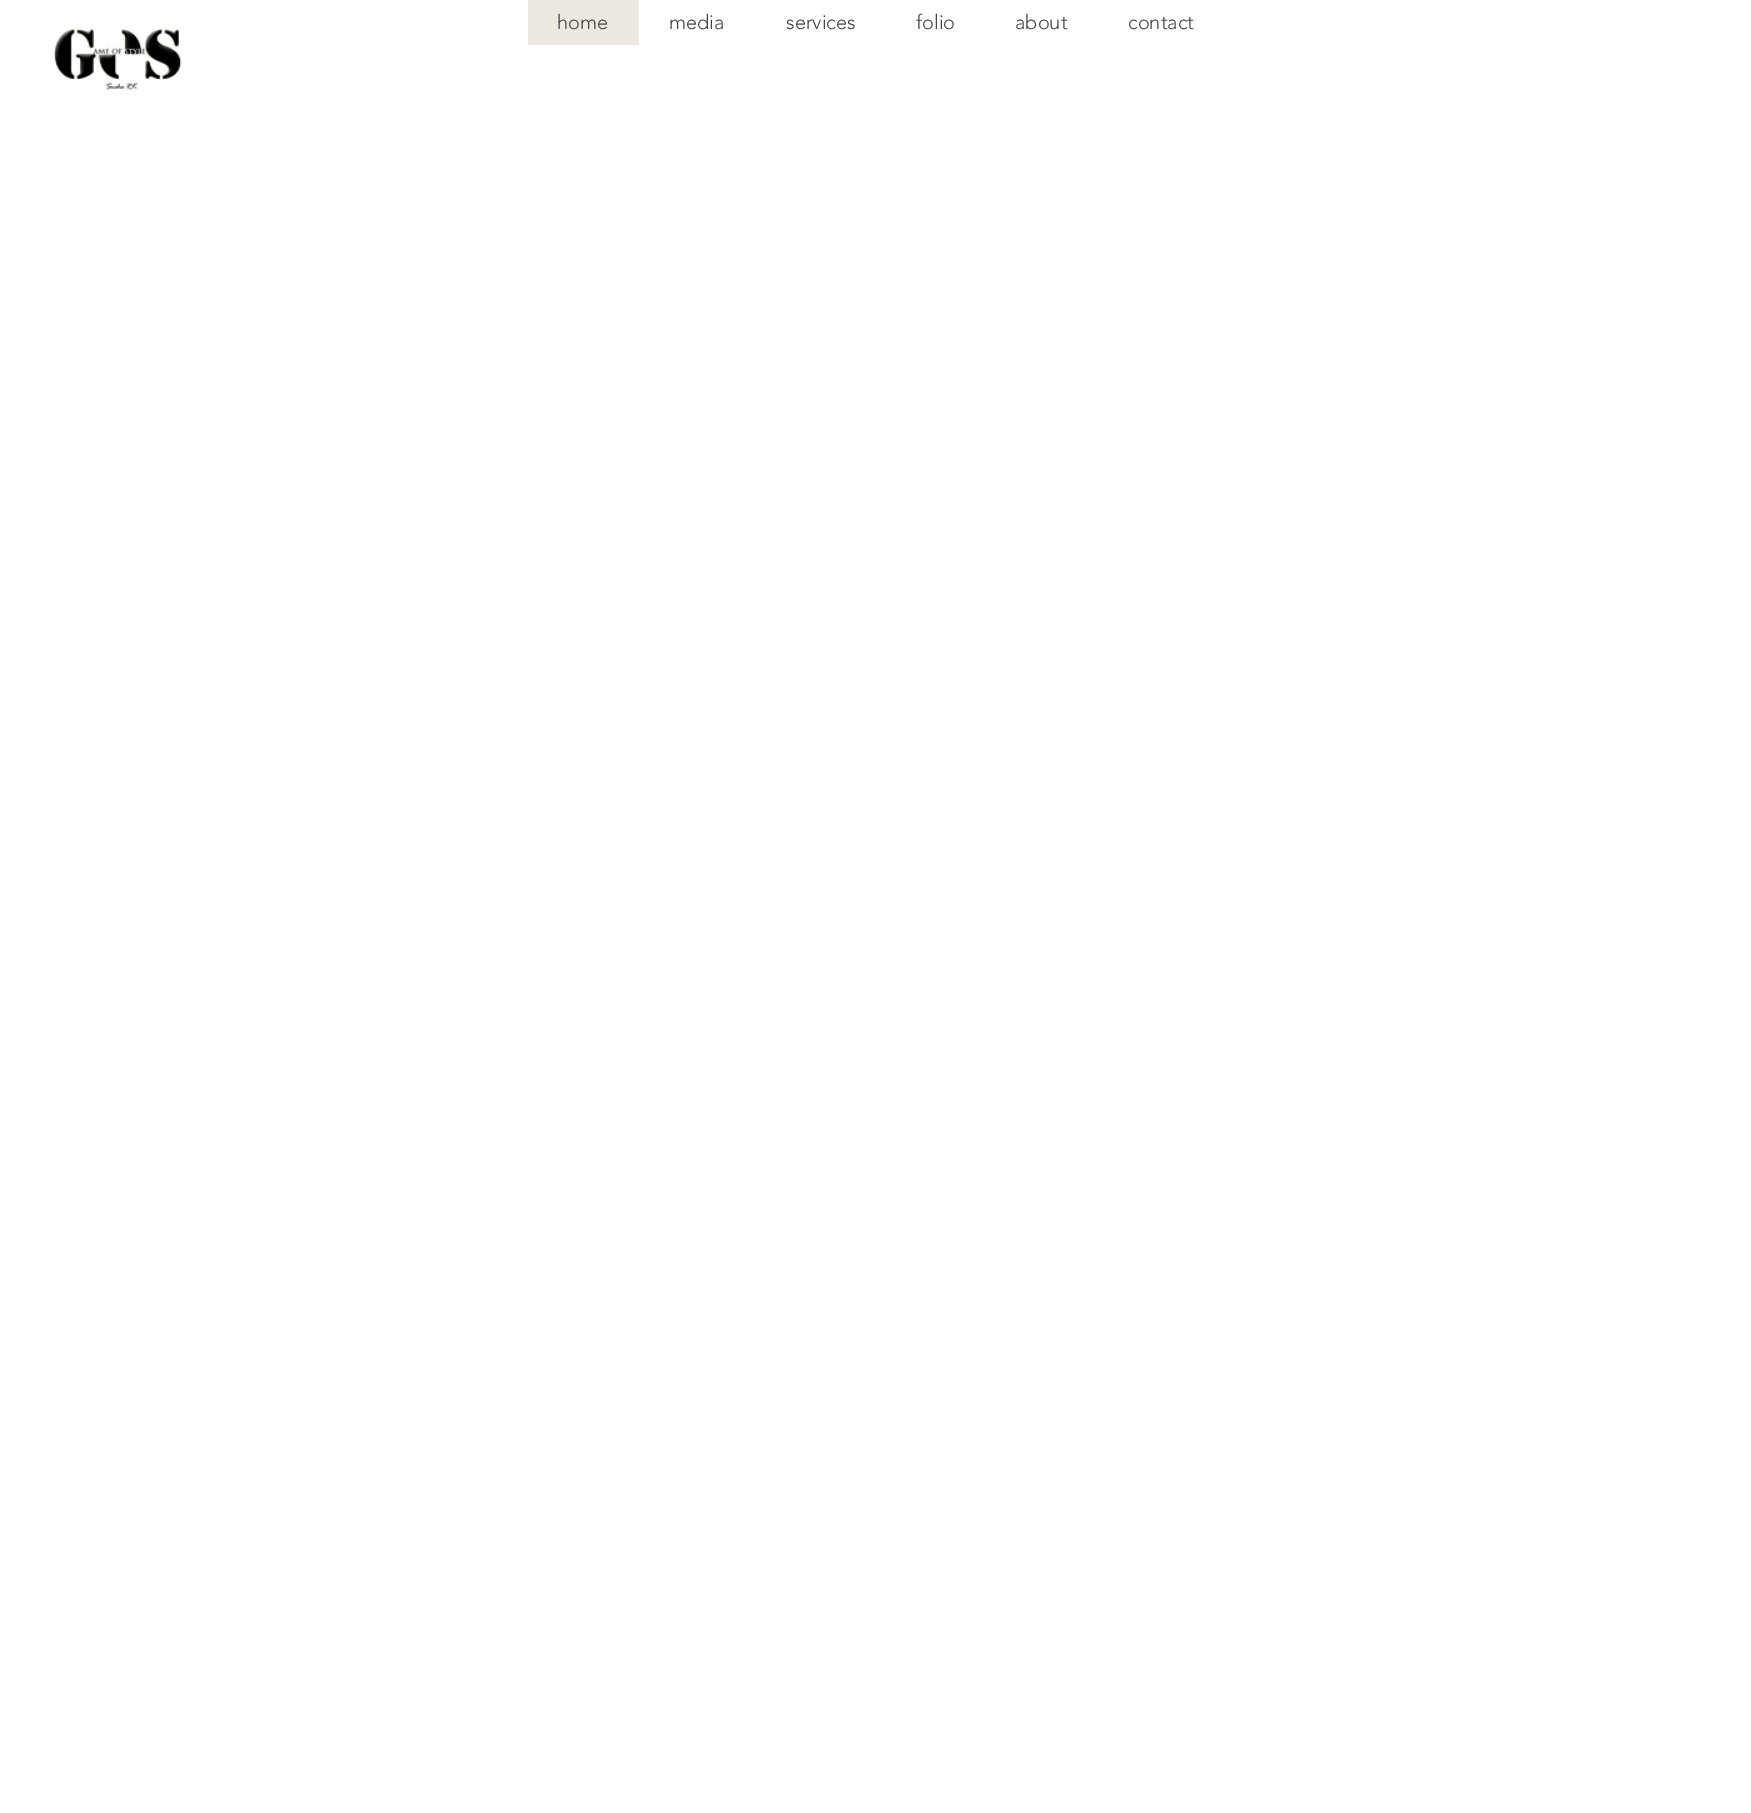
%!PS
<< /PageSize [1751 1813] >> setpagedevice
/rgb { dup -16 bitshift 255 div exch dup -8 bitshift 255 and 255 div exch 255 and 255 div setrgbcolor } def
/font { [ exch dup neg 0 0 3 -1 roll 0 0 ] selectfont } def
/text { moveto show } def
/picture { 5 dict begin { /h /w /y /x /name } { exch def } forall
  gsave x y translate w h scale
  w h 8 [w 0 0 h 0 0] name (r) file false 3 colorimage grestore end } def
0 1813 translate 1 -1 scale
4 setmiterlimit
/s1 { /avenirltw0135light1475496-Light 20 font 16#444444 rgb } def
16#FFFFFF rgb
0 0 1751 1813 rectfill
16#EDE9E1 rgb
528 0 111 45 rectfill
s1
(home) 557 29 text
(media) 669 29 text
(services) 786 29 text
(folio) 916 29 text
(about) 1015 29 text
(contact) 1128 29 text
(pic1.raw) 53 28 129 63 picture
showpage
